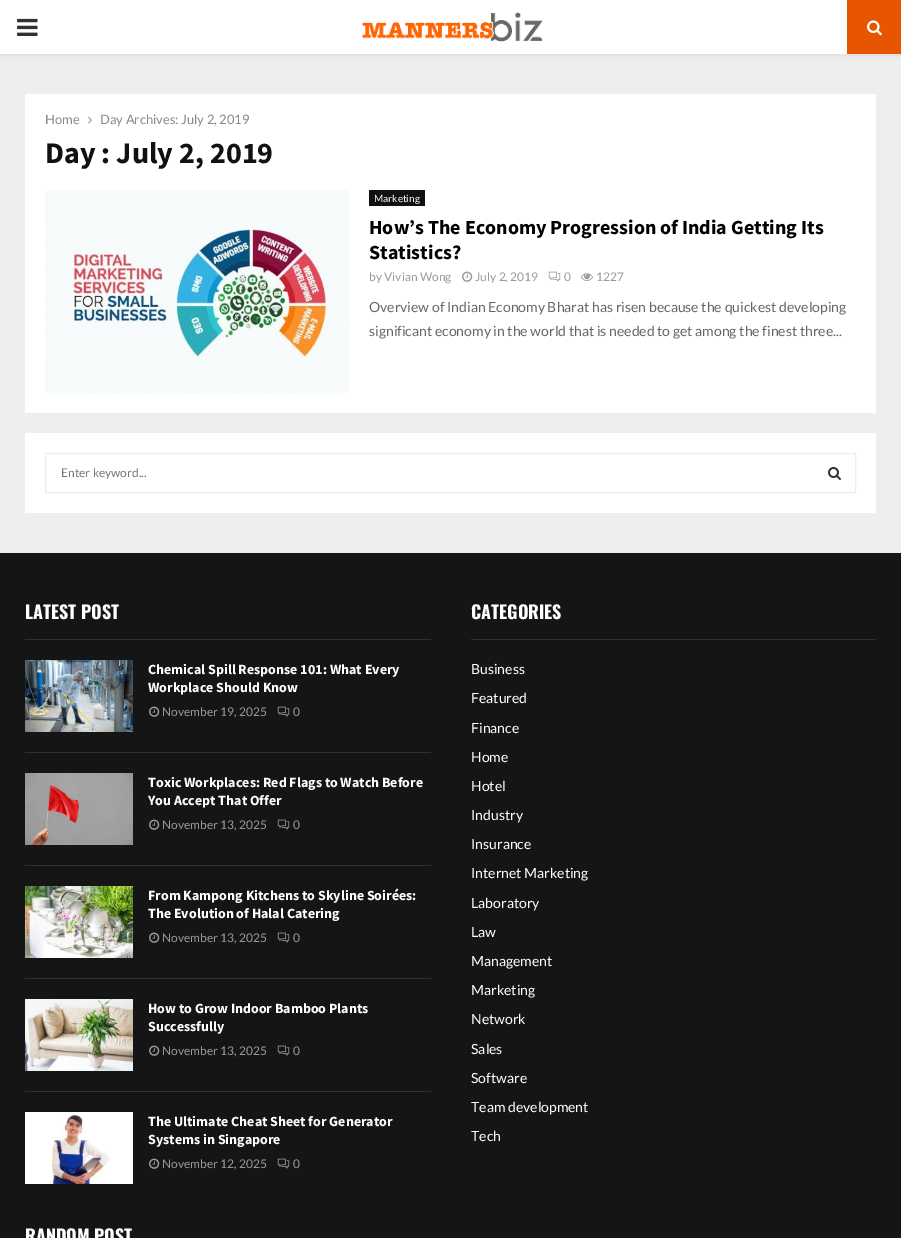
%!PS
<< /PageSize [901 1238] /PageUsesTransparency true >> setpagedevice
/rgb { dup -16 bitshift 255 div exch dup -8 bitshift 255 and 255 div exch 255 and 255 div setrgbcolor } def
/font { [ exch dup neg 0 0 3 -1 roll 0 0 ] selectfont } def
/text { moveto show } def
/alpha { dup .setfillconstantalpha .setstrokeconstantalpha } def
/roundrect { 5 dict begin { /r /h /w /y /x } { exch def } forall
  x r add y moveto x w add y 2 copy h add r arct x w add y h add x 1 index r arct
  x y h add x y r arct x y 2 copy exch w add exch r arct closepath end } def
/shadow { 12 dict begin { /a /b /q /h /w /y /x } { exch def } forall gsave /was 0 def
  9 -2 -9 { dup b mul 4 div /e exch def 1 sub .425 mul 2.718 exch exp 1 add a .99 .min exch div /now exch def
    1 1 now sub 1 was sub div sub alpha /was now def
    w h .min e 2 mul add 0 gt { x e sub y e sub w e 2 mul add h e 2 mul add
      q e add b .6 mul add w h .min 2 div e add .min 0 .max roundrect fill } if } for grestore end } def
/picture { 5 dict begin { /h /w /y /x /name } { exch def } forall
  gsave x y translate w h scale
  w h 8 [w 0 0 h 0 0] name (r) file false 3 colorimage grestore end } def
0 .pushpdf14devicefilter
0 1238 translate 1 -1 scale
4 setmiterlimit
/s1 { /Lato-Regular 13 font 16#888888 rgb } def
/s2 { /SourceSansPro-Bold 30 font 16#111111 rgb } def
/s3 { /Lato-Regular 10 font 16#FFFFFF rgb } def
/s4 { /SourceSansPro-Bold 20 font 16#000000 rgb } def
/s5 { /Lato-Regular 12 font 16#999999 rgb } def
/s6 { /Lato-Regular 14 font 16#666666 rgb } def
/s7 { /Lato-Regular 12 font 16#757575 rgb } def
/s8 { /Oswald-Bold 18 font 16#FFFFFF rgb } def
/s9 { /SourceSansPro-Bold 14 font 16#FFFFFF rgb } def
/s10 { /Lato-Regular 14 font 16#FFFFFF rgb } def
16#EEEEEE rgb
0 0 901 1238 rectfill
16#BEBEBE rgb
0 1 901 54 0 2.5 0.46 shadow
16#FFFFFF rgb
0 0 847 54 rectfill
(pic1.raw) 17 18 21 18 picture
(pic2.raw) 361 12 182 30 picture
16#E85500 rgb
847 0 54 54 rectfill
(pic3.raw) 867 20 15 16 picture
16#FFFFFF rgb
25 94 851 319 rectfill
s1
(Home) 45 124 text
(pic4.raw) 88 116 4 8 picture
(Day Archives: July 2, 2019) 100 124 text
s2
(Day : July 2, 2019) 45 163 text
(pic5.raw) 45 190 304 203 picture
369 190 56 16 rectfill
s3
(Marketing) 374 202 text
s4
(How’s The Economy Progression of India Getting Its) 369 234 text
(Statistics?) 369 259 text
s5
(by Vivian Wong) 369 281 text
(pic6.raw) 462 271 11 11 picture
(July 2, 2019) 475 281 text
(pic7.raw) 548 271 13 11 picture
(0) 564 281 text
(pic8.raw) 581 273 12 8 picture
(1227) 596 281 text
s6
(Overview of Indian Economy Bharat has risen because the quickest developing) 369 312 text
(significant economy in the world that is needed to get among the finest three...) 369 336 text
16#FFFFFF rgb
25 433 851 80 rectfill
16#ECECEC rgb
45.5 453.5 810 39 rectstroke
s7
(Enter keyword...) 61 477 text
(pic9.raw) 828 467 13 13 picture
16#151515 rgb
0 553 901 685 rectfill
16#313131 rgb
25 639 406 1 rectfill
s8
(LATEST POST) 25 619 text
16#313131 rgb
25 752 406 1 rectfill
(pic10.raw) 25 660 108 72 picture
s9
(Chemical Spill Response 101: What Every) 148 674 text
(Workplace Should Know) 148 692 text
(pic11.raw) 149 706 11 11 picture
s5
(November 19, 2025) 162 716 text
(pic12.raw) 277 706 13 11 picture
(0) 293 716 text
16#313131 rgb
25 865 406 1 rectfill
(pic13.raw) 25 773 108 72 picture
s9
(Toxic Workplaces: Red Flags to Watch Before) 148 787 text
(You Accept That Offer) 148 805 text
(pic11.raw) 149 819 11 11 picture
s5
(November 13, 2025) 162 829 text
(pic12.raw) 277 819 13 11 picture
(0) 293 829 text
16#313131 rgb
25 978 406 1 rectfill
(pic14.raw) 25 886 108 72 picture
s9
(From Kampong Kitchens to Skyline Soirées:) 148 900 text
(The Evolution of Halal Catering) 148 918 text
(pic11.raw) 149 932 11 11 picture
s5
(November 13, 2025) 162 942 text
(pic12.raw) 277 932 13 11 picture
(0) 293 942 text
16#313131 rgb
25 1091 406 1 rectfill
(pic15.raw) 25 999 108 72 picture
s9
(How to Grow Indoor Bamboo Plants) 148 1013 text
(Successfully) 148 1031 text
(pic11.raw) 149 1045 11 11 picture
s5
(November 13, 2025) 162 1055 text
(pic12.raw) 277 1045 13 11 picture
(0) 293 1055 text
(pic16.raw) 25 1112 108 72 picture
s9
(The Ultimate Cheat Sheet for Generator) 148 1126 text
(Systems in Singapore) 148 1144 text
(pic11.raw) 149 1158 11 11 picture
s5
(November 12, 2025) 162 1168 text
(pic12.raw) 277 1158 13 11 picture
(0) 293 1168 text
16#313131 rgb
471 639 405 1 rectfill
s8
(CATEGORIES) 471 619 text
s10
(Business) 471 674 text
(Featured) 471 703 text
(Finance) 471 733 text
(Home) 471 762 text
(Hotel) 471 791 text
(Industry) 471 820 text
(Insurance) 471 849 text
(Internet Marketing) 471 878 text
(Laboratory) 471 908 text
(Law) 471 937 text
(Management) 471 966 text
(Marketing) 471 995 text
(Network) 471 1024 text
(Sales) 471 1054 text
(Software) 471 1083 text
(Team development) 471 1112 text
(Tech) 471 1141 text
s8
(RANDOM POST) 25 1243 text
.poppdf14devicefilter showpage
